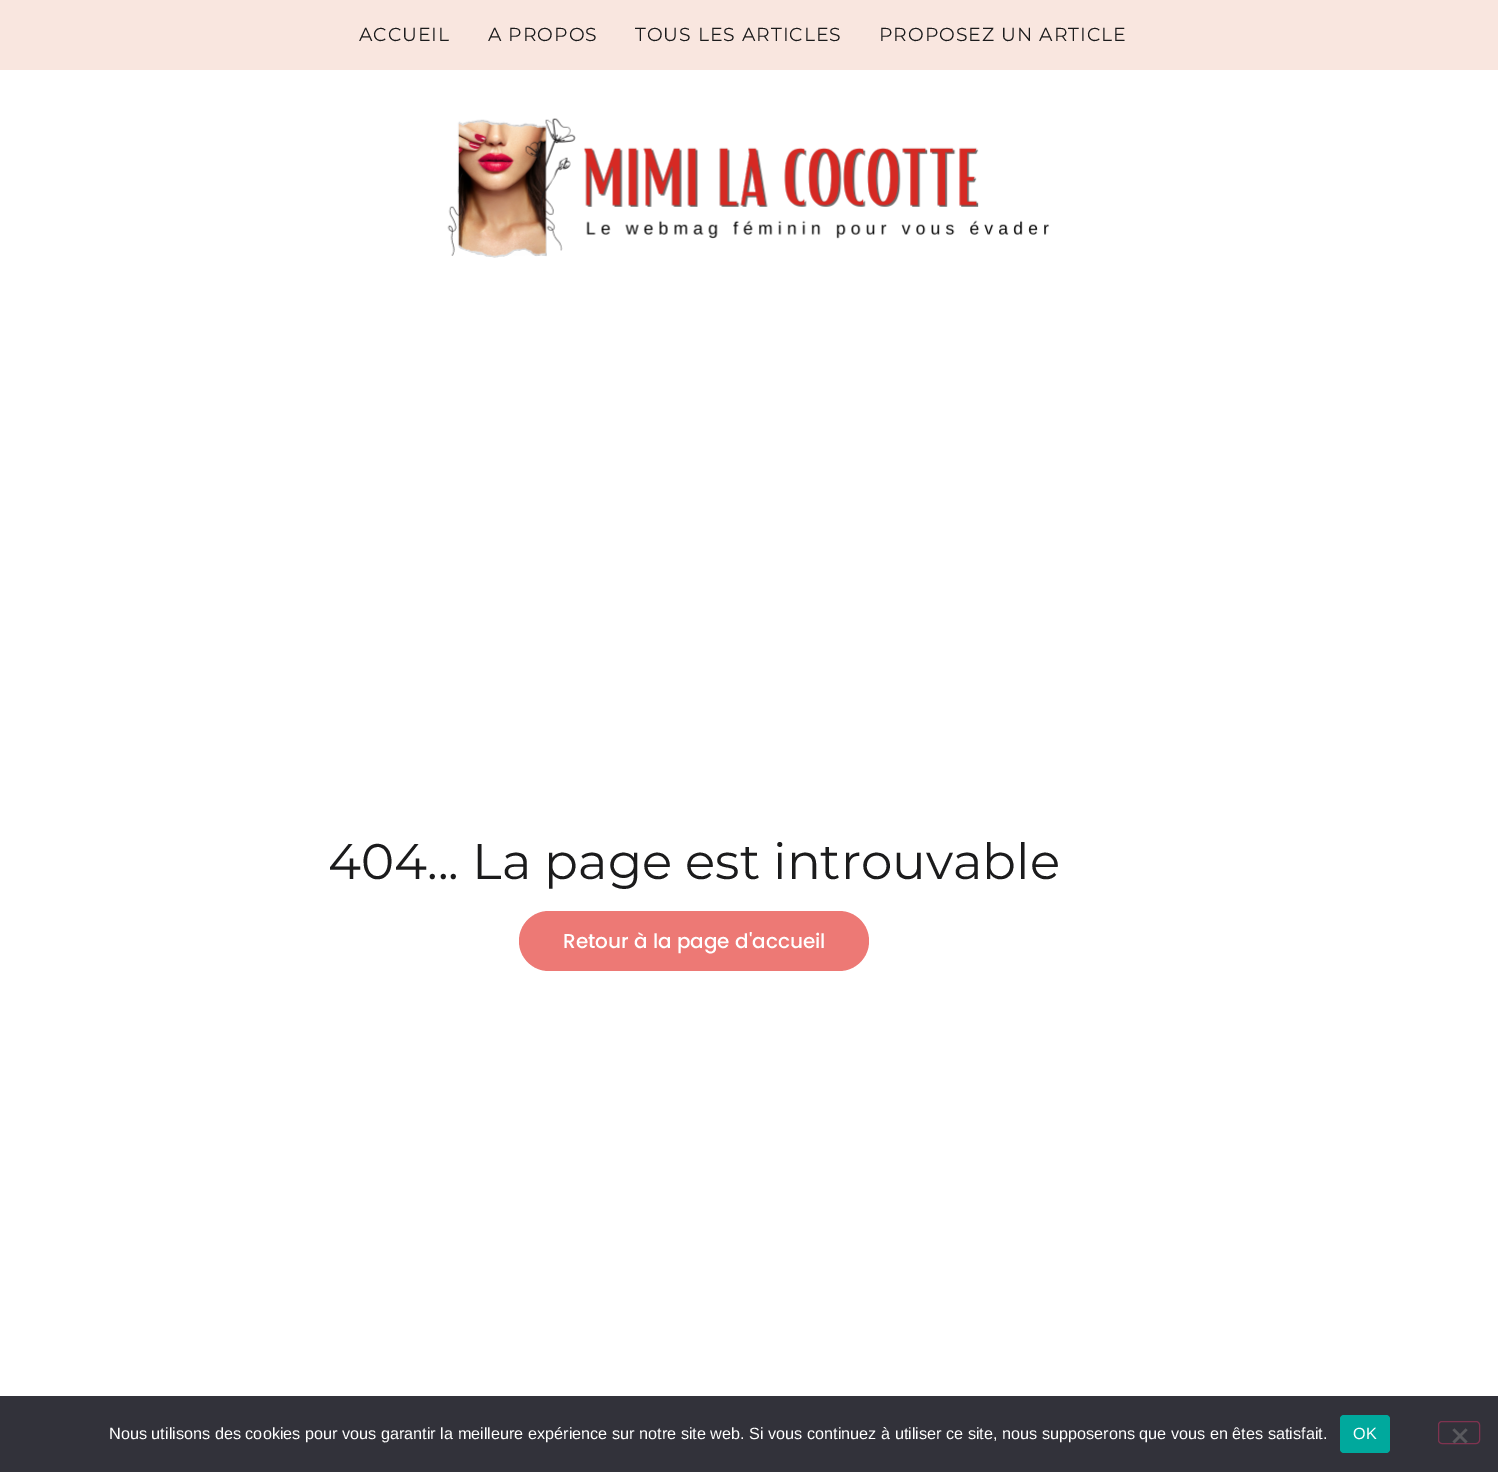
%!PS
<< /PageSize [1498 1472] >> setpagedevice
/rgb { dup -16 bitshift 255 div exch dup -8 bitshift 255 and 255 div exch 255 and 255 div setrgbcolor } def
/font { [ exch dup neg 0 0 3 -1 roll 0 0 ] selectfont } def
/text { moveto show } def
/roundrect { 5 dict begin { /r /h /w /y /x } { exch def } forall
  x r add y moveto x w add y 2 copy h add r arct x w add y h add x 1 index r arct
  x y h add x y r arct x y 2 copy exch w add exch r arct closepath end } def
/picture { 5 dict begin { /h /w /y /x /name } { exch def } forall
  gsave x y translate w h scale
  w h 8 [w 0 0 h 0 0] name (r) file false 3 colorimage grestore end } def
0 1472 translate 1 -1 scale
4 setmiterlimit
/s1 { /Montserrat-Regular 50 font 16#1B1B1C rgb } def
/s2 { /Poppins-Medium 20 font 16#FFFFFF rgb } def
/s3 { /LiberationSans-Regular 16.25 font 16#FFFFFF rgb } def
16#FFFFFF rgb
0 0 1498 1472 rectfill
16#F9E6DF rgb
0 0 1498 70 rectfill
/Montserrat-Regular 18.75 font
16#1B1B1C rgb
359 41 moveto 1 0 (ACCUEIL) ashow
488 41 moveto 1 0 (A PROPOS) ashow
635 41 moveto 1 0 (TOUS LES ARTICLES) ashow
879 41 moveto 1 0 (PROPOSEZ UN ARTICLE) ashow
(pic1.raw) 447 118 603 140 picture
s1
(404... La page est introuvable) 328 879 text
16#ED7975 rgb
519 911 350 60 30 roundrect fill
s2
(Retour à la page d'accueil) 563 948 text
16#32323A rgb
0 1396 1498 76 rectfill
s3
(Nous utilisons des cookies pour vous garantir la meilleure expérience sur notre site web. Si vous continuez à utiliser ce site, nous supposerons que vous en êtes satisfait.) 109 1439 text
16#00A99D rgb
1340 1415 50 38 4 roundrect fill
s3
(OK) 1353 1439 text
16#7F3350 rgb
1438.5 1421.5 41 22 3.5 roundrect stroke
16#59595D rgb
1465.5 1428.5 moveto 1467.5 1430 lineto 1454.5 1443.5 lineto 1452.5 1441.5 lineto closepath fill
1452.5 1430 moveto 1454.5 1428.5 lineto 1467.5 1441.5 lineto 1465.5 1443.5 lineto closepath fill
showpage
